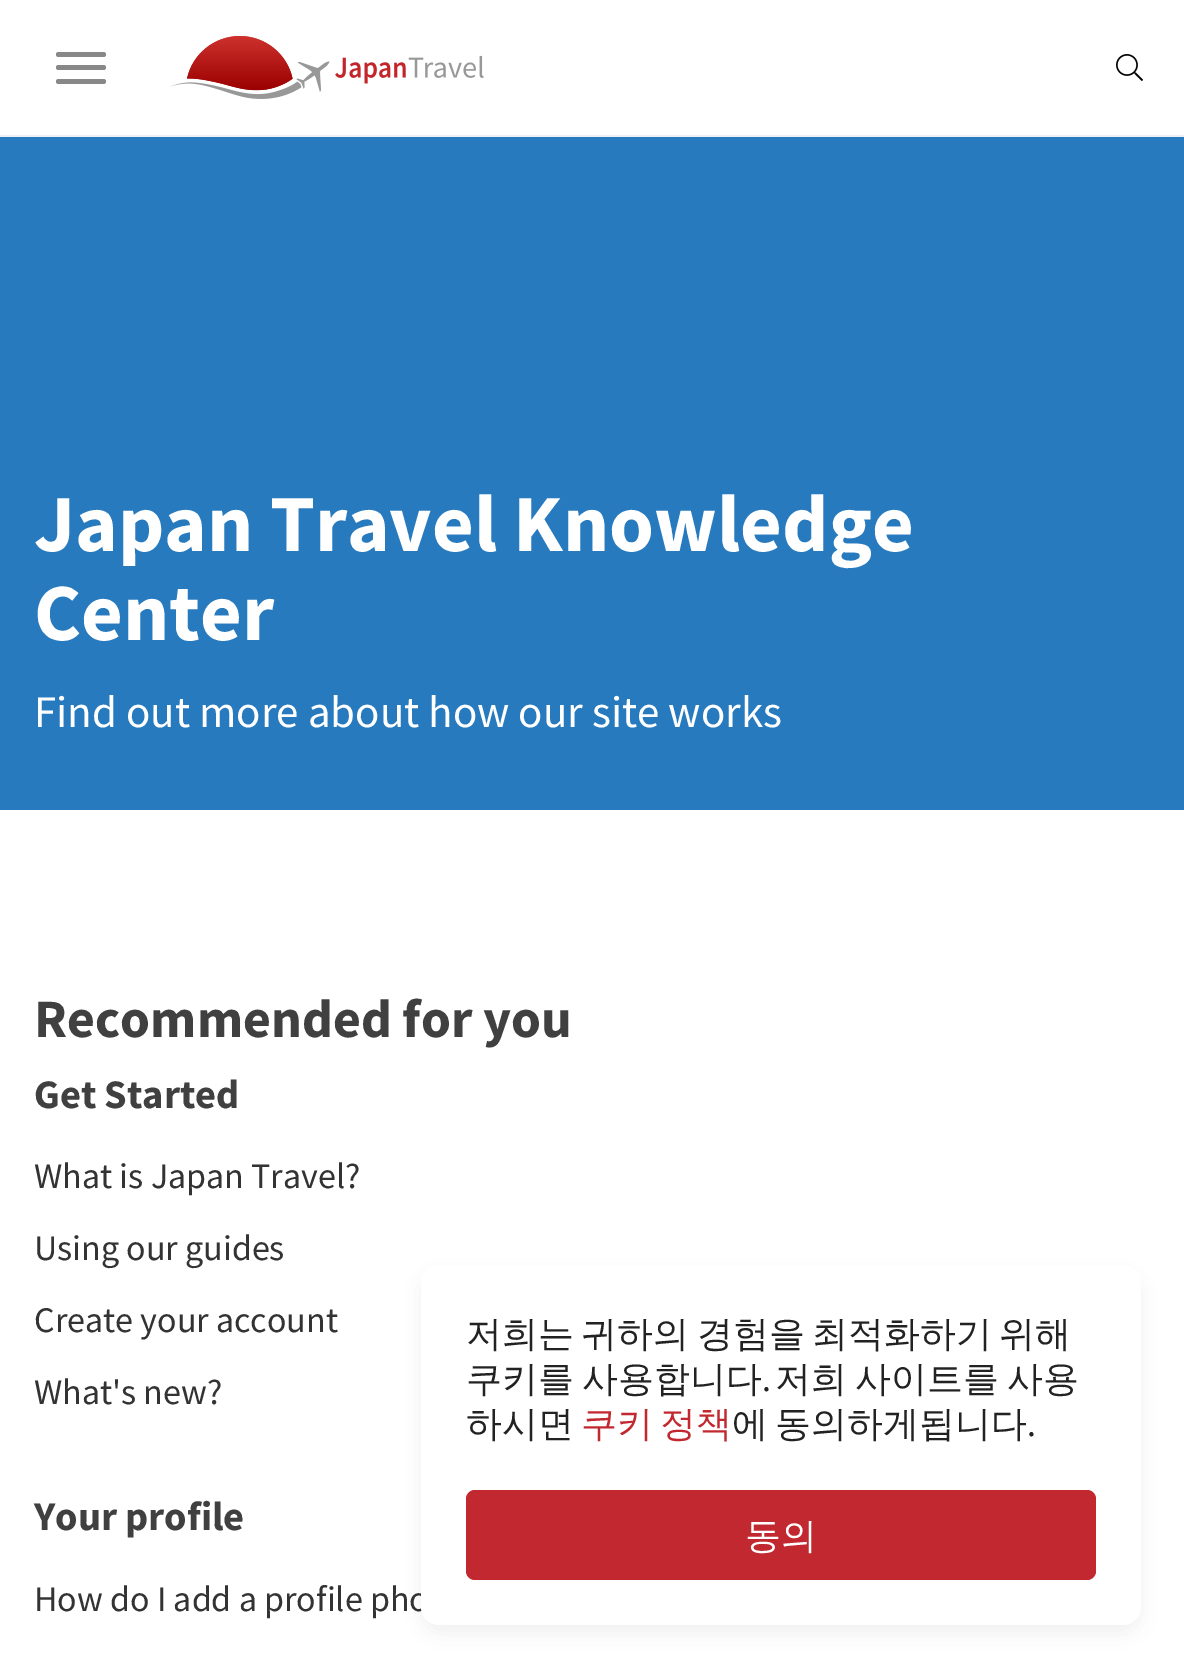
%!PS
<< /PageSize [1184 1668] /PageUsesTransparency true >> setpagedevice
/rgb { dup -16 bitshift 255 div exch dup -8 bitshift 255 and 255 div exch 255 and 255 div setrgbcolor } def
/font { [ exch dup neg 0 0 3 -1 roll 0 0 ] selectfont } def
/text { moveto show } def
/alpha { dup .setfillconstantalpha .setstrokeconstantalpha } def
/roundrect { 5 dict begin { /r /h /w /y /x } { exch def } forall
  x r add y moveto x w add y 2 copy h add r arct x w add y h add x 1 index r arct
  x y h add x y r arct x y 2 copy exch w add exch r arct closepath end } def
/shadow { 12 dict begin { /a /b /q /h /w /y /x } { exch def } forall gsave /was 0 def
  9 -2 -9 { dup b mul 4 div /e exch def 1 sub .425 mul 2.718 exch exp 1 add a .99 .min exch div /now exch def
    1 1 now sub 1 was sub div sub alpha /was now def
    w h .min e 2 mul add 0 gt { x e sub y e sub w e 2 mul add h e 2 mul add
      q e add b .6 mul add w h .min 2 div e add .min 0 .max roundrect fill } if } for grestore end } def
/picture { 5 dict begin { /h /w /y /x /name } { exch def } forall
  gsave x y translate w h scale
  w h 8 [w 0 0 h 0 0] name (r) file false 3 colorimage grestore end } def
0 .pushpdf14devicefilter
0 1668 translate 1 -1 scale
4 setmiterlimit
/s1 { /SourceSansPro-Bold 81 font 16#FFFFFF rgb } def
/s2 { /SourceSansPro-Regular 45 font 16#FFFFFF rgb } def
/s3 { /SourceSansPro-Bold 54 font 16#404040 rgb } def
/s4 { /SourceSansPro-Bold 40.5 font 16#404040 rgb } def
/s5 { /SourceSansPro-Regular 36 font 16#333333 rgb } def
/s6 { /SourceSansPro-Regular 36 font 16#222222 rgb } def
/s7 { /WenQuanYiZenHei-Medium 36 font 16#222222 rgb } def
/s8 { /WenQuanYiZenHei-Medium 36 font 16#FFFFFF rgb } def
16#FFFFFF rgb
0 0 1184 1668 rectfill
16#EDF0F4 rgb
0 135 1184 2 rectfill
16#888888 rgb
56 52 50 5 2.5 roundrect fill
56 65 50 5 2.5 roundrect fill
56 79 50 5 2.5 roundrect fill
(pic1.raw) 170 36 314 63 picture
(pic2.raw) 1116 54 27 27 picture
16#277ABE rgb
0 137 1184 673 rectfill
s1
(Japan Travel Knowledge) 34 551 text
(Center) 34 640 text
s2
(Find out more about how our site works) 34 727 text
s3
(Recommended for you) 34 1037 text
s4
(Get Started) 34 1108 text
s5
(What is Japan Travel?) 34 1188 text
(Using our guides) 34 1260 text
(Create your account) 34 1332 text
(What's new?) 34 1404 text
s4
(Your profile) 34 1530 text
s5
(How do I add a profile pho) 34 1611 text
16#000000 rgb
421 1274 720 360 18 10 0.05 shadow
16#FFFFFF rgb
421 1265 720 360 18 roundrect fill
/WenQuanYiZenHei-Medium 36 font
16#222222 rgb
466 1346 moveto -3.5 0 32 (저희는 귀하의 경험을 최적화하기 위해) widthshow
466 1391 moveto -3 0 32 (쿠키를 사용합니다) widthshow
s6
(.) 762 1391 text
/WenQuanYiZenHei-Medium 36 font
775 1391 moveto -3 0 32 (저희 사이트를 사용) widthshow
(하시면) 466 1436 text
16#C1282F rgb
581 1436 moveto -3.5 0 32 (쿠키 정책) widthshow
16#222222 rgb
732 1436 moveto -3.5 0 32 (에 동의하게됩니다) widthshow
s6
(.) 1027 1436 text
16#C1282F rgb
466 1490 630 90 9 roundrect fill
s8
(동의) 745 1548 text
.poppdf14devicefilter showpage
